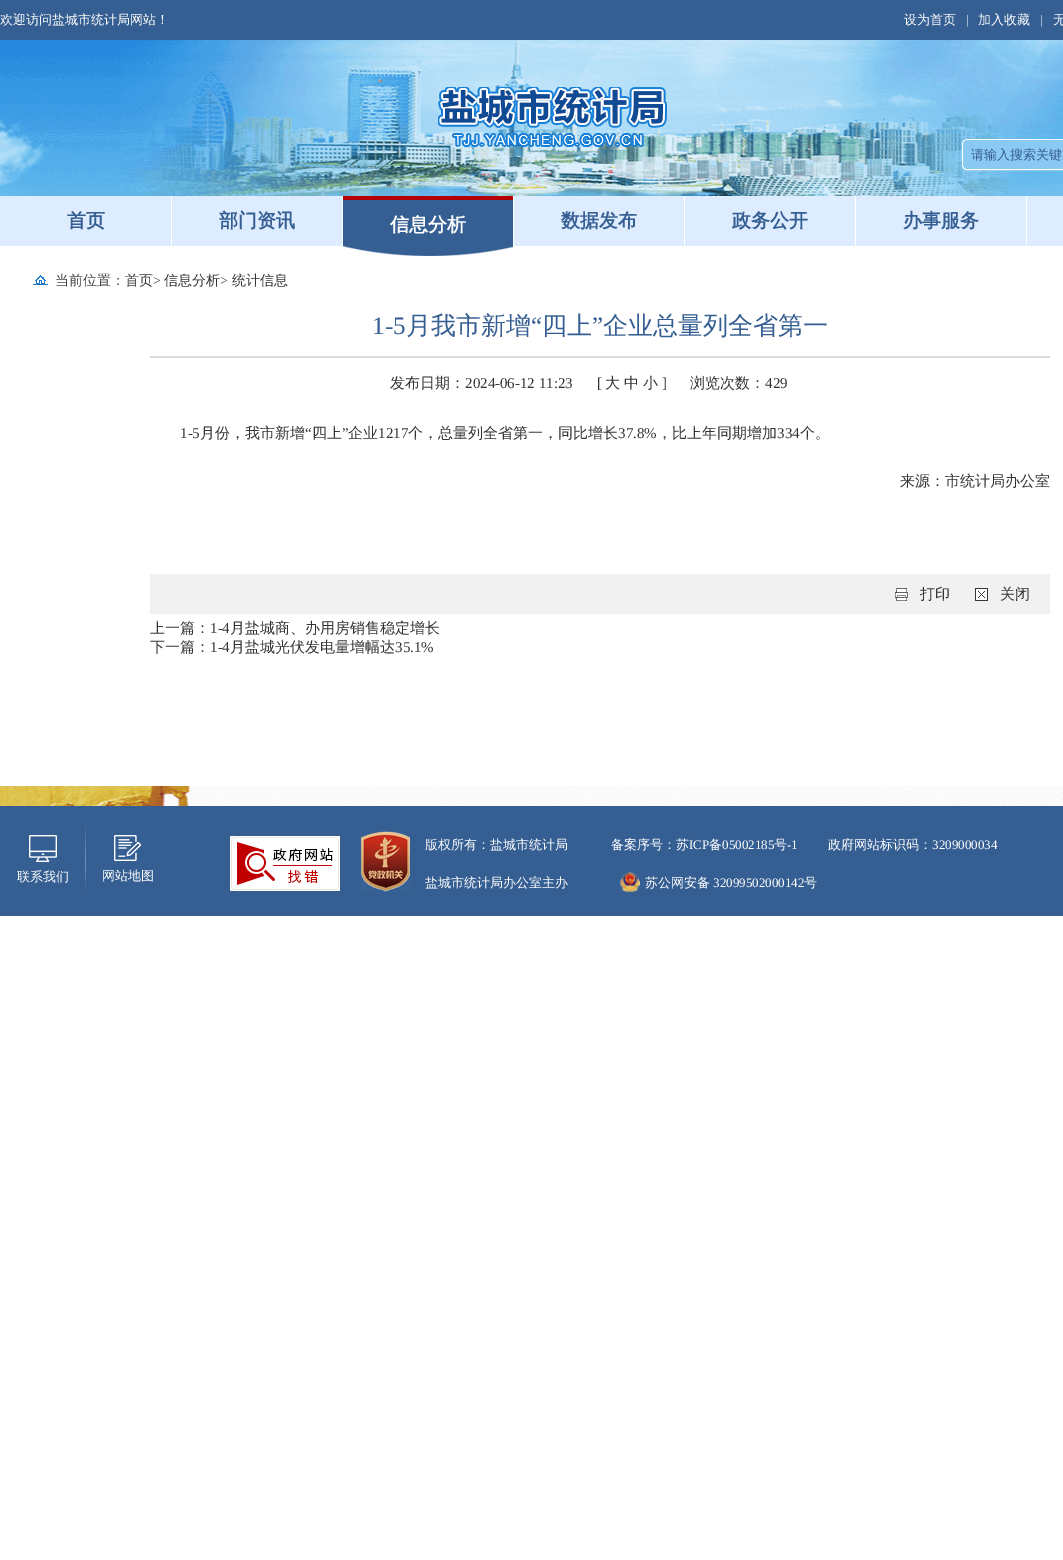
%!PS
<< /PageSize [1063 1560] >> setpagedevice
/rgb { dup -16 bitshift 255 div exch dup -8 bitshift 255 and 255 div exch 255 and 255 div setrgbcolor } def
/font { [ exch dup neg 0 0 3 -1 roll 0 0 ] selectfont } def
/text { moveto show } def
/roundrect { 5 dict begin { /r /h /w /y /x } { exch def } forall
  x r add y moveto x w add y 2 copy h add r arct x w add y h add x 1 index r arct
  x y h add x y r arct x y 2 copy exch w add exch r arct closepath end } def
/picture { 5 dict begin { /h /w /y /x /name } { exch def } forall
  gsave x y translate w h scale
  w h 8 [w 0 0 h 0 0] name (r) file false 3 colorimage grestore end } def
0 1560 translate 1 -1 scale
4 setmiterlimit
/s1 { /WenQuanYiZenHei-Medium 13 font 16#FFFFFF rgb } def
/s2 { /LiberationSerif-Regular 13 font 16#FFFFFF rgb } def
/s3 { /WenQuanYiZenHei-Medium 13 font 16#355E92 rgb } def
/s4 { /WenQuanYiZenHei-Bold 19 font 16#355E92 rgb } def
/s5 { /WenQuanYiZenHei-Bold 19 font 16#FFFFFF rgb } def
/s6 { /WenQuanYiZenHei-Medium 14 font 16#454545 rgb } def
/s7 { /WenQuanYiZenHei-Medium 14 font 16#333333 rgb } def
/s8 { /LiberationSerif-Regular 14 font 16#454545 rgb } def
/s9 { /LiberationSerif-Regular 25 font 16#355E92 rgb } def
/s10 { /WenQuanYiZenHei-Medium 25 font 16#355E92 rgb } def
/s11 { /WenQuanYiZenHei-Medium 15 font 16#333333 rgb } def
/s12 { /LiberationSerif-Regular 15 font 16#333333 rgb } def
16#FFFFFF rgb
0 0 1063 1560 rectfill
(pic1.raw) 0 40 1063 766 picture
16#355E92 rgb
0 0 1063 40 rectfill
s1
(欢迎访问盐城市统计局网站！) 0 24 text
(设为首页) 904 24 text
s2
(|) 966 24 text
s1
(加入收藏) 978 24 text
s2
(|) 1040 24 text
s1
(无) 1053 24 text
(pic2.raw) 438 87 229 60 picture
962.5 139.5 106 30 4.5 roundrect stroke
16#8AC9F1 rgb
968 140 moveto 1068 140 lineto 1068 169 lineto 968 169 lineto 965 169 963 167 963 164 curveto 963 145 lineto 963 142 965 140 968 140 curveto closepath fill
s3
(请输入搜索关键) 971 159 text
16#DDECFF rgb
0 196 171 50 rectfill
s4
(首页) 67 227 text
16#FFFFFF rgb
171 196 1 50 rectfill
16#DDECFF rgb
172 196 170 50 rectfill
s4
(部门资讯) 219 227 text
16#FFFFFF rgb
342 196 1 50 rectfill
16#355E92 rgb
343 200 170 46 rectfill
16#B40000 rgb
343 196 170 4 rectfill
s5
(信息分析) 390 231 text
0 246 1063 540 rectfill
(pic3.raw) 343 246 170 10 picture
513 196 1 50 rectfill
16#DDECFF rgb
514 196 170 50 rectfill
s4
(数据发布) 561 227 text
16#FFFFFF rgb
684 196 1 50 rectfill
16#DDECFF rgb
685 196 170 50 rectfill
s4
(政务公开) 732 227 text
16#FFFFFF rgb
855 196 1 50 rectfill
16#DDECFF rgb
856 196 170 50 rectfill
s4
(办事服务) 903 227 text
16#FFFFFF rgb
1026 196 1 50 rectfill
16#DDECFF rgb
1027 196 36 50 rectfill
(pic4.raw) 33 275 15 10 picture
s6
(当前位置：) 55 285 text
s7
(首页) 125 285 text
s8
(>) 153 285 text
s7
(信息分析) 164 285 text
s8
(>) 220 285 text
s7
(统计信息) 232 285 text
16#DBDBDB rgb
150 356 900 2 rectfill
s9
(1-5) 372 334 text
s10
(月我市新增) 406 334 text
s9
(“) 531 334 text
s10
(四上) 542 334 text
s9
(”) 592 334 text
s10
(企业总量列全省第一) 603 334 text
s11
(发布日期：) 390 388 text
s12
(2024-06-12 11:23) 465 388 text
([) 597 388 text
s11
(大) 605 388 text
(中) 624 388 text
(小) 643 388 text
s12
(]) 662 388 text
s11
(浏览次数：) 690 388 text
s12
(429) 765 388 text
(1-5) 180 438 text
s11
(月份，我市新增) 200 438 text
s12
(“) 305 438 text
s11
(四上) 312 438 text
s12
(”) 342 438 text
s11
(企业) 348 438 text
s12
(1217) 378 438 text
s11
(个，总量列全省第一，同比增长) 408 438 text
s12
(37.8%) 618 438 text
s11
(，比上年同期增加) 657 438 text
s12
(334) 777 438 text
s11
(个。) 800 438 text
(来源：市统计局办公室) 900 486 text
16#F1F1F1 rgb
150 574 900 40 rectfill
(pic5.raw) 895 588 13 13 picture
s11
(打印) 920 599 text
(pic6.raw) 975 588 13 13 picture
(关闭) 1000 599 text
(上一篇：) 150 633 text
s12
(1-4) 210 633 text
s11
(月盐城商、办用房销售稳定增长) 230 633 text
(下一篇：) 150 652 text
s12
(1-4) 210 652 text
s11
(月盐城光伏发电量增幅达) 230 652 text
s12
(35.1%) 395 652 text
16#355E92 rgb
0 806 1063 110 rectfill
(pic7.raw) 29 835 28 27 picture
s1
(联系我们) 17 881 text
(pic8.raw) 85 825 1 65 picture
(pic9.raw) 114 835 27 26 picture
(网站地图) 102 880 text
(pic10.raw) 230 836 110 55 picture
(pic11.raw) 361 831 49 61 picture
(版权所有：盐城市统计局) 425 849 text
(备案序号：苏) 611 849 text
s2
(ICP) 689 849 text
s1
(备) 709 849 text
s2
(05002185) 722 849 text
s1
(号) 774 849 text
s2
(-1) 787 849 text
s1
(政府网站标识码：) 828 849 text
s2
(3209000034) 932 849 text
s1
(盐城市统计局办公室主办) 425 887 text
(pic12.raw) 620 872 20 20 picture
(苏公网安备) 645 887 text
s2
(32099502000142) 713 887 text
s1
(号) 804 887 text
showpage
